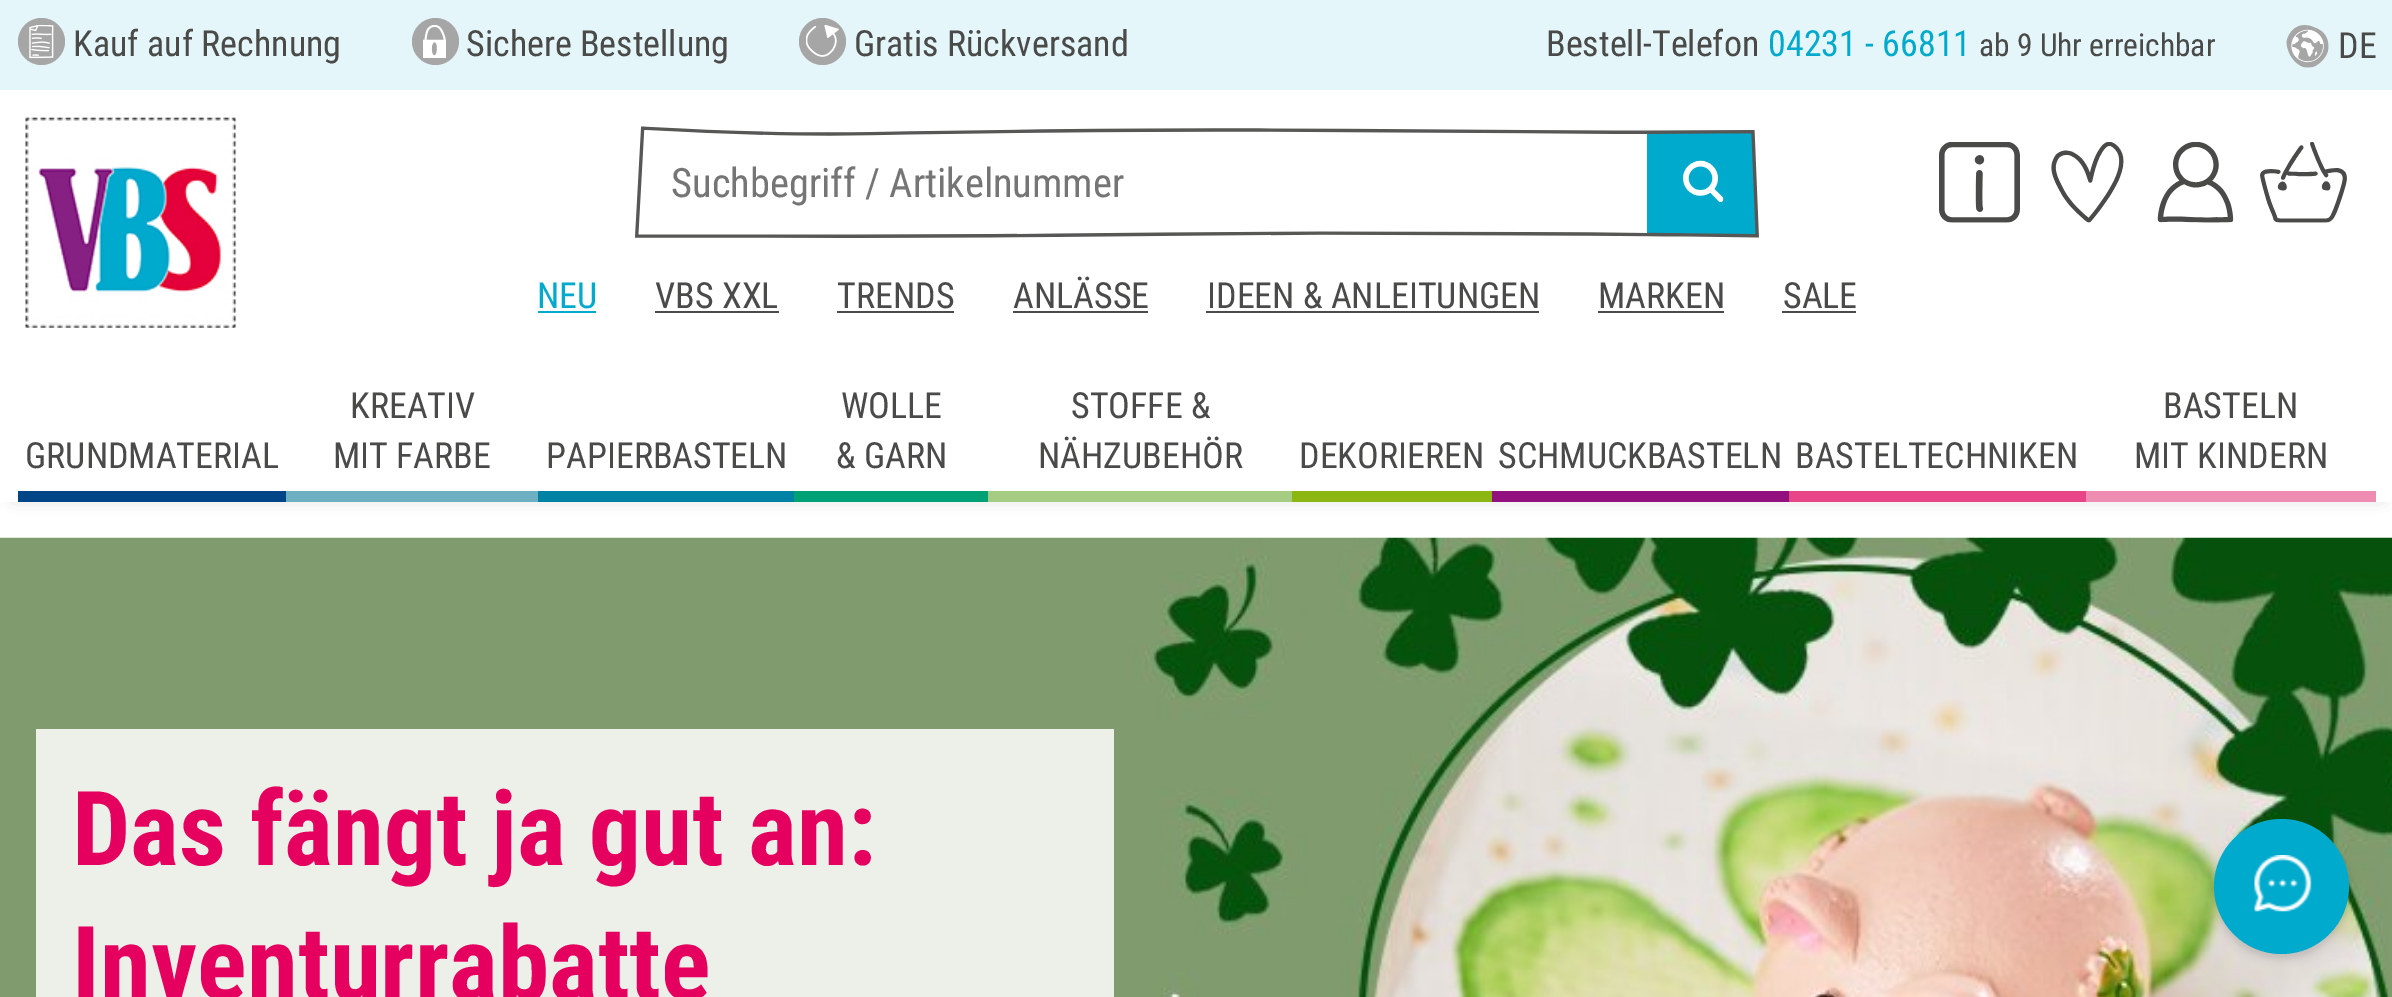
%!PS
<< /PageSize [2392 997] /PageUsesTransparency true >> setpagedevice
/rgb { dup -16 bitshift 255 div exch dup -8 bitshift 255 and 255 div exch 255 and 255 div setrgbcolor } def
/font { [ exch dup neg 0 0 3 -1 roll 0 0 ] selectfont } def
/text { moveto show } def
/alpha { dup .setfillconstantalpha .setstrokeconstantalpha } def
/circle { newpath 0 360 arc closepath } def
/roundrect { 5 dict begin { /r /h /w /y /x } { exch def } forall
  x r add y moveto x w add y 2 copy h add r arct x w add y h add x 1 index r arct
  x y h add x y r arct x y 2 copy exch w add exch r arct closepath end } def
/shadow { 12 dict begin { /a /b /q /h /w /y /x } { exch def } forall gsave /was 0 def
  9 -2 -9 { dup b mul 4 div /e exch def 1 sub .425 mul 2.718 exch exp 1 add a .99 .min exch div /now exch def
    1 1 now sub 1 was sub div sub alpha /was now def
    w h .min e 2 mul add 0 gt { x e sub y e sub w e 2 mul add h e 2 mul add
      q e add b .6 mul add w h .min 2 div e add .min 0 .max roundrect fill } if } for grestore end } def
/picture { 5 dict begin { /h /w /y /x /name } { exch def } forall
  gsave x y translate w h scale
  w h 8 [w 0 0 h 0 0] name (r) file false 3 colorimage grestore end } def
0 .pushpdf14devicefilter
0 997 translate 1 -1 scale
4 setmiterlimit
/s1 { /RobotoCondensed-Regular 36 font 16#4A4A49 rgb } def
/s2 { /RobotoCondensed-Regular 36 font 16#00AACD rgb } def
/s3 { /RobotoCondensed-Regular 31.5 font 16#4A4A49 rgb } def
/s4 { /RobotoCondensed-Regular 40.5 font 16#757575 rgb } def
/s5 { /RobotoCondensed-Bold 103.5 font 16#E5005F rgb } def
16#FFFFFF rgb
0 0 2392 997 rectfill
16#000000 rgb
14 23 2367 472 0 9 0.3 shadow
16#FFFFFF rgb
0 90 2392 412 rectfill
16#E5F6FA rgb
0 0 2392 90 rectfill
16#A6A6A6 rgb
41.5 41.5 23.5 circle fill
(pic1.raw) 29 25 25 34 picture
s1
(Kauf auf Rechnung) 73 56 text
16#A6A6A6 rgb
435.5 41.5 23.5 circle fill
(pic2.raw) 423 25 23 33 picture
s1
(Sichere Bestellung) 466 56 text
16#A6A6A6 rgb
822.5 41.5 23.5 circle fill
(pic3.raw) 806 25 33 32 picture
s1
(Gratis Rückversand) 854 56 text
(Bestell-Telefon) 1546 56 text
s2
(04231 - 66811) 1768 56 text
s3
(ab 9 Uhr erreichbar) 1979 56 text
(pic4.raw) 2286 25 43 43 picture
s1
(DE) 2338 58 text
(pic5.raw) 25 117 212 211 picture
(pic6.raw) 635 126 1012 112 picture
s4
(Suchbegriff / Artikelnummer) 671 197 text
(pic7.raw) 1647 130 112 108 picture
(pic8.raw) 1683 160 41 42 picture
(pic9.raw) 1939 142 81 81 picture
(pic10.raw) 2051 142 73 81 picture
(pic11.raw) 2157 142 77 81 picture
(pic12.raw) 2260 142 87 81 picture
s2
(NEU) 537 308 text
538 311 58 2 rectfill
s1
(VBS XXL) 655 308 text
655 311 124 2 rectfill
(TRENDS) 837 308 text
837 311 117 2 rectfill
(ANLÄSSE) 1013 308 text
1013 311 135 2 rectfill
(IDEEN & ANLEITUNGEN) 1207 308 text
1206 311 333 2 rectfill
(MARKEN) 1598 308 text
1598 311 126 2 rectfill
(SALE) 1783 308 text
1782 311 74 2 rectfill
16#004687 rgb
18 491 268 11 rectfill
s1
(GRUNDMATERIAL) 25 468 text
16#6DB0C1 rgb
286 491 252 11 rectfill
s1
(KREATIV) 350 418 text
(MIT FARBE) 333 468 text
16#0082A4 rgb
538 491 256 11 rectfill
s1
(PAPIERBASTELN) 546 468 text
16#00A175 rgb
794 491 194 11 rectfill
s1
(WOLLE) 841 418 text
(& GARN) 836 468 text
16#A5CC82 rgb
988 491 304 11 rectfill
s1
(STOFFE &) 1071 418 text
(NÄHZUBEHÖR) 1038 468 text
16#8CB612 rgb
1292 491 200 11 rectfill
s1
(DEKORIEREN) 1299 468 text
16#93117E rgb
1492 491 297 11 rectfill
s1
(SCHMUCKBASTELN) 1498 468 text
16#E74587 rgb
1789 491 297 11 rectfill
s1
(BASTELTECHNIKEN) 1795 468 text
16#EE8CB2 rgb
2086 491 290 11 rectfill
s1
(BASTELN) 2163 418 text
(MIT KINDERN) 2134 468 text
(pic13.raw) 0 537 2392 460 picture
16#ECF0E9 rgb
36 729 1078 268 rectfill
s5
(Das fängt ja gut an:) 72 865 text
(Inventurrabatte) 72 1000 text
16#161616 rgb
2214 824 135 135 67.5 4.5 0.16 shadow
16#00AACD rgb
2281.5 886.5 67.5 circle fill
(pic14.raw) 2254 855 58 57 picture
.poppdf14devicefilter showpage
